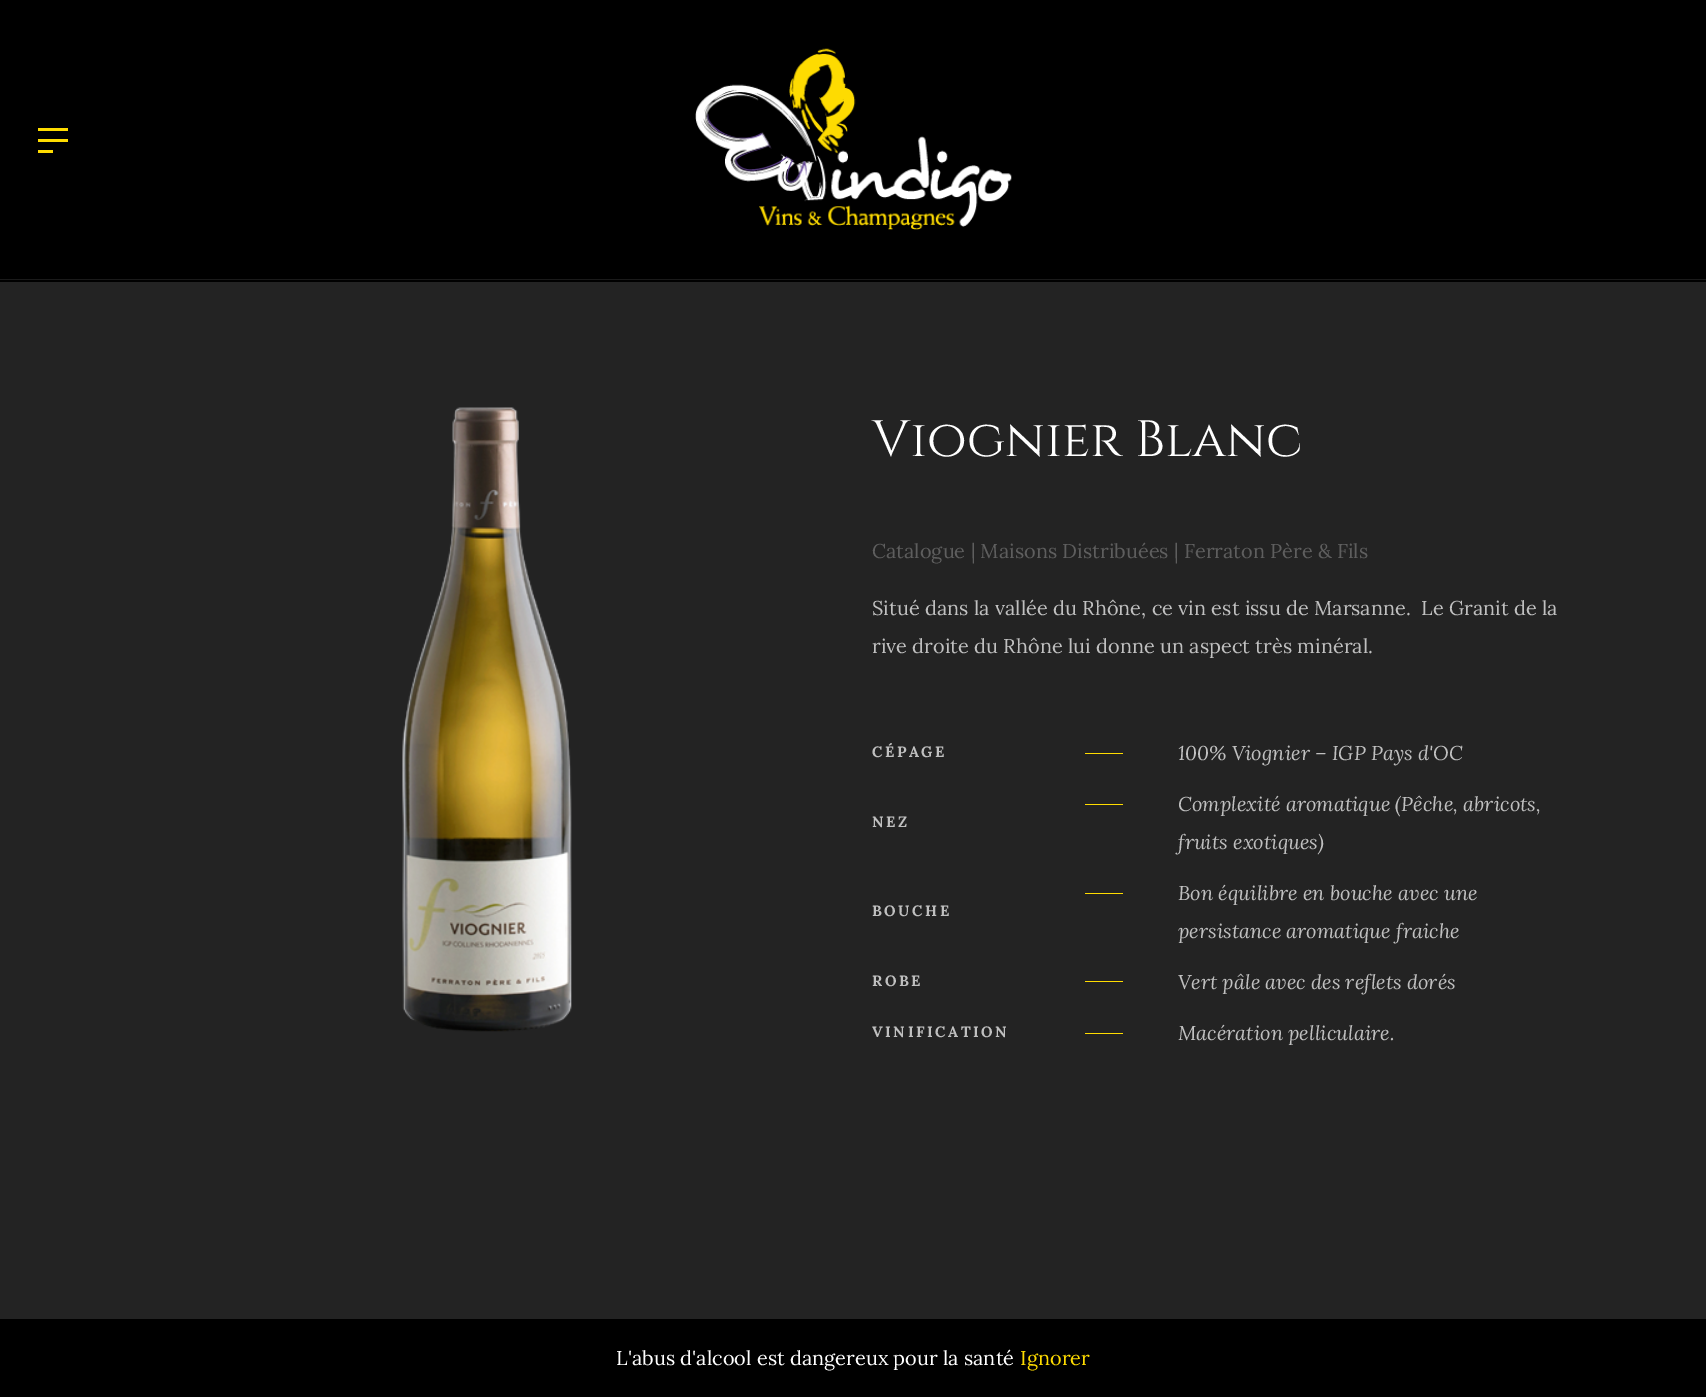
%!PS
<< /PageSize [1706 1397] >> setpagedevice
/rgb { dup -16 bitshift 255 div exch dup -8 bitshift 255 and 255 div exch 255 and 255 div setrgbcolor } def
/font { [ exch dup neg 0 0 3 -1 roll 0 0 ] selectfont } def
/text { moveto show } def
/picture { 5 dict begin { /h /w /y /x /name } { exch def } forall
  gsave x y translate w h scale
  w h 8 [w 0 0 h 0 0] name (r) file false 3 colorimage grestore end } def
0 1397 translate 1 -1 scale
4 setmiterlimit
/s1 { /Cinzel-Regular 51.25 font 16#FFFFFF rgb } def
/s2 { /Lora-Regular 20 font 16#5E5E5E rgb } def
/s3 { /Lora-Regular 20 font 16#C0C0C0 rgb } def
/s4 { /Lora-Italic 20 font 16#C0C0C0 rgb } def
/s5 { /Lora-Regular 20 font 16#FFFFFF rgb } def
/s6 { /Lora-Regular 20 font 16#FFDC00 rgb } def
16#232323 rgb
0 0 1706 1397 rectfill
16#000000 rgb
0 0 1706 279 rectfill
16#FFDC00 rgb
38 128 30 3 rectfill
38 139 30 3 rectfill
38 150 15 3 rectfill
(pic1.raw) 695 48 317 182 picture
16#000000 rgb
0 280 1706 2 rectfill
16#1A1A1A rgb
0 279 1706 1 rectfill
(pic2.raw) 402 407 170 625 picture
s1
(Viognier Blanc) 872 456 text
s2
(Catalogue | Maisons Distribuées | Ferraton Père & Fils) 872 558 text
s3
(Situé dans la vallée du Rhône, ce vin est issu de Marsanne.  Le Granit de la) 872 615 text
(rive droite du Rhône lui donne un aspect très minéral.) 872 653 text
/Lora-Bold 15 font
872 757 moveto 2.5 0 (CÉPAGE) ashow
16#FFDC00 rgb
1085 753 38 1 rectfill
s4
(100% Viognier – IGP Pays d'OC) 1178 760 text
16#FFDC00 rgb
1085 804 38 1 rectfill
/Lora-Bold 15 font
16#C0C0C0 rgb
872 827 moveto 2.5 0 (NEZ) ashow
s4
(Complexité aromatique \(Pêche, abricots,) 1178 811 text
(fruits exotiques\)) 1178 849 text
16#FFDC00 rgb
1085 893 38 1 rectfill
/Lora-Bold 15 font
16#C0C0C0 rgb
872 916 moveto 2.5 0 (BOUCHE) ashow
s4
(Bon équilibre en bouche avec une) 1178 900 text
(persistance aromatique fraiche) 1178 938 text
/Lora-Bold 15 font
872 986 moveto 2.5 0 (ROBE) ashow
16#FFDC00 rgb
1085 981 38 1 rectfill
s4
(Vert pâle avec des reflets dorés) 1178 989 text
/Lora-Bold 15 font
872 1037 moveto 2.5 0 (VINIFICATION) ashow
16#FFDC00 rgb
1085 1033 38 1 rectfill
s4
(Macération pelliculaire.) 1178 1040 text
16#000000 rgb
0 1319 1706 78 rectfill
s5
(L'abus d'alcool est dangereux pour la santé) 616 1365 text
s6
(Ignorer) 1020 1365 text
showpage
